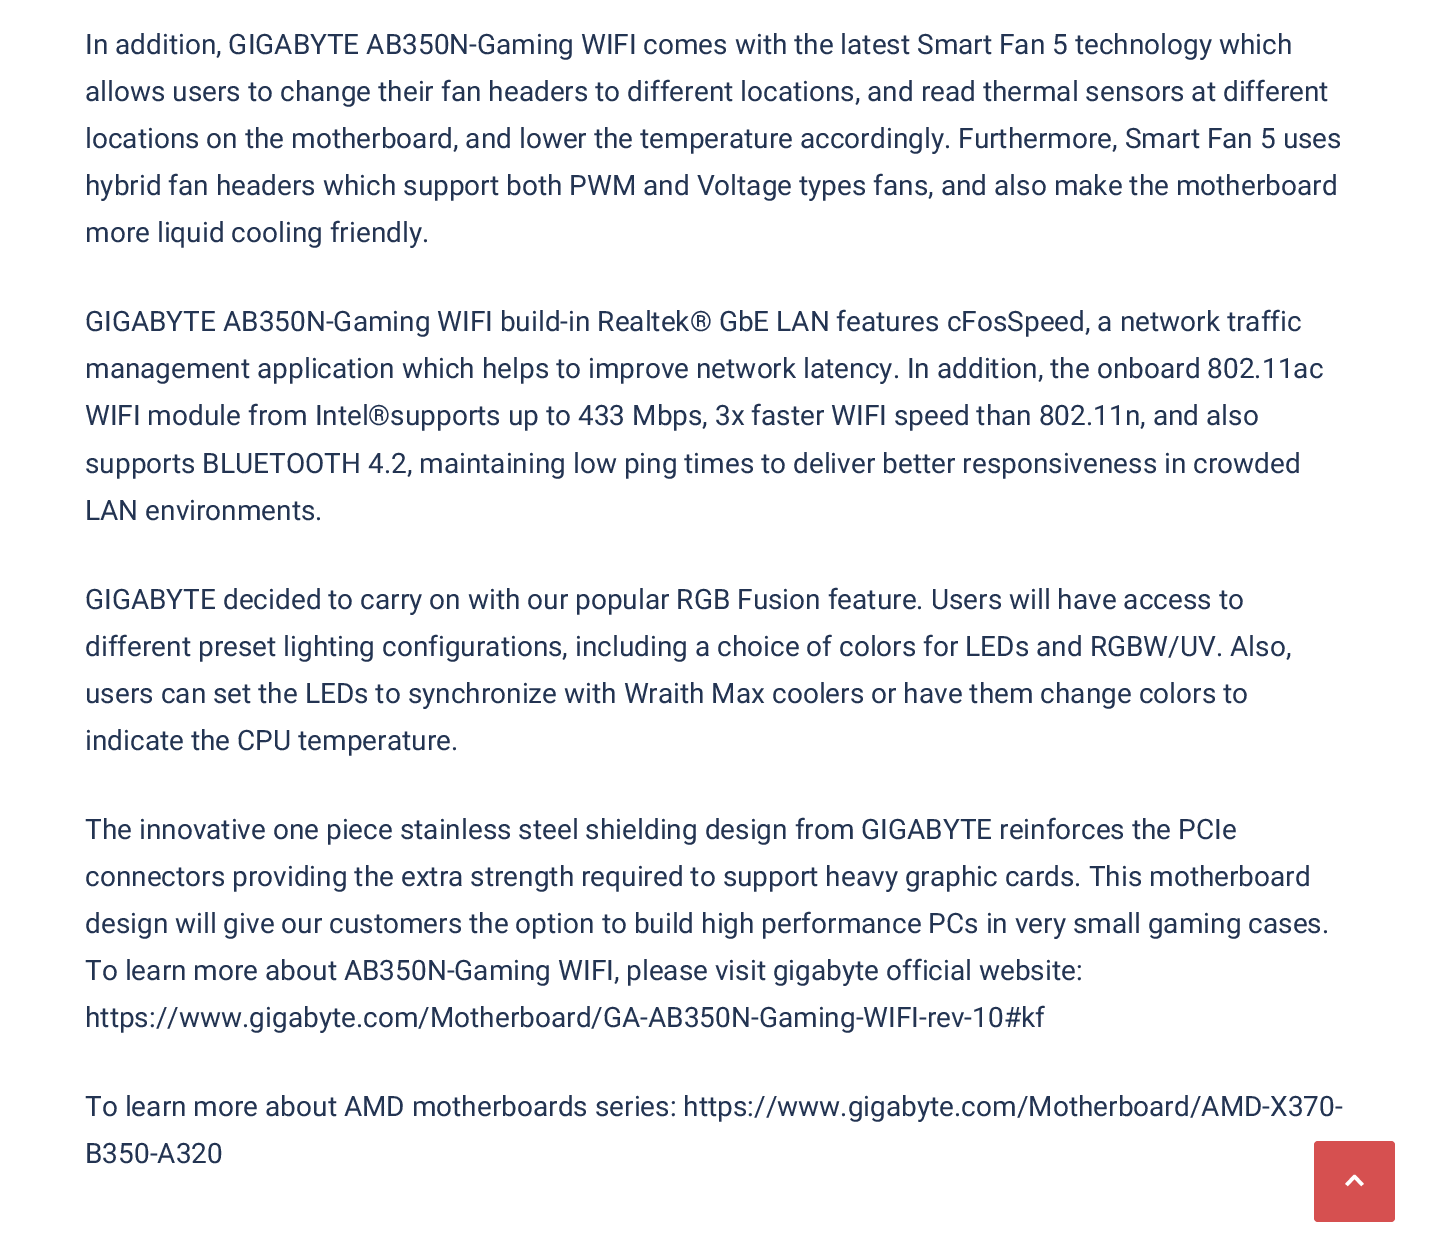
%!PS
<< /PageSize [1429 1238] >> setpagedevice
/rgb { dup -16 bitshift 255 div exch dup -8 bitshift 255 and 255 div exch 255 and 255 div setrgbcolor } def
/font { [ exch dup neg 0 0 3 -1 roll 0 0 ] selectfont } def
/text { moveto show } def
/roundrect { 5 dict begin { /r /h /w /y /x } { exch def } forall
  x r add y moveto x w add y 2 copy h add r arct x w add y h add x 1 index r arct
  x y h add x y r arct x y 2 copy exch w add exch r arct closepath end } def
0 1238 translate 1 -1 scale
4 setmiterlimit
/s1 { /Roboto-Regular 28 font 16#233452 rgb } def
16#FFFFFF rgb
0 0 1429 1238 rectfill
s1
(In addition, GIGABYTE AB350N-Gaming WIFI comes with the latest Smart Fan 5 technology which) 85 54 text
(allows users to change their fan headers to different locations, and read thermal sensors at different) 85 101 text
(locations on the motherboard, and lower the temperature accordingly. Furthermore, Smart Fan 5 uses) 85 148 text
(hybrid fan headers which support both PWM and Voltage types fans, and also make the motherboard) 85 195 text
(more liquid cooling friendly.) 85 242 text
(GIGABYTE AB350N-Gaming WIFI build-in Realtek® GbE LAN features cFosSpeed, a network traffic) 85 331 text
(management application which helps to improve network latency. In addition, the onboard 802.11ac) 85 378 text
(WIFI module from Intel®supports up to 433 Mbps, 3x faster WIFI speed than 802.11n, and also) 85 425 text
(supports BLUETOOTH 4.2, maintaining low ping times to deliver better responsiveness in crowded) 85 473 text
(LAN environments.) 85 520 text
(GIGABYTE decided to carry on with our popular RGB Fusion feature. Users will have access to) 85 609 text
(different preset lighting configurations, including a choice of colors for LEDs and RGBW/UV. Also,) 85 656 text
(users can set the LEDs to synchronize with Wraith Max coolers or have them change colors to) 85 703 text
(indicate the CPU temperature.) 85 750 text
(The innovative one piece stainless steel shielding design from GIGABYTE reinforces the PCIe) 85 839 text
(connectors providing the extra strength required to support heavy graphic cards. This motherboard) 85 886 text
(design will give our customers the option to build high performance PCs in very small gaming cases.) 85 933 text
(To learn more about AB350N-Gaming WIFI, please visit gigabyte official website:) 85 980 text
(https://www.gigabyte.com/Motherboard/GA-AB350N-Gaming-WIFI-rev-10#kf) 85 1027 text
(To learn more about AMD motherboards series: https://www.gigabyte.com/Motherboard/AMD-X370-) 85 1116 text
(B350-A320) 85 1163 text
16#D65050 rgb
1314 1141 81 81 4 roundrect fill
16#FFFFFF rgb
3.5 setlinewidth
1 setlinejoin
1346.5 1185 moveto 1354.5 1176.5 lineto 1362.5 1185 lineto stroke
showpage
